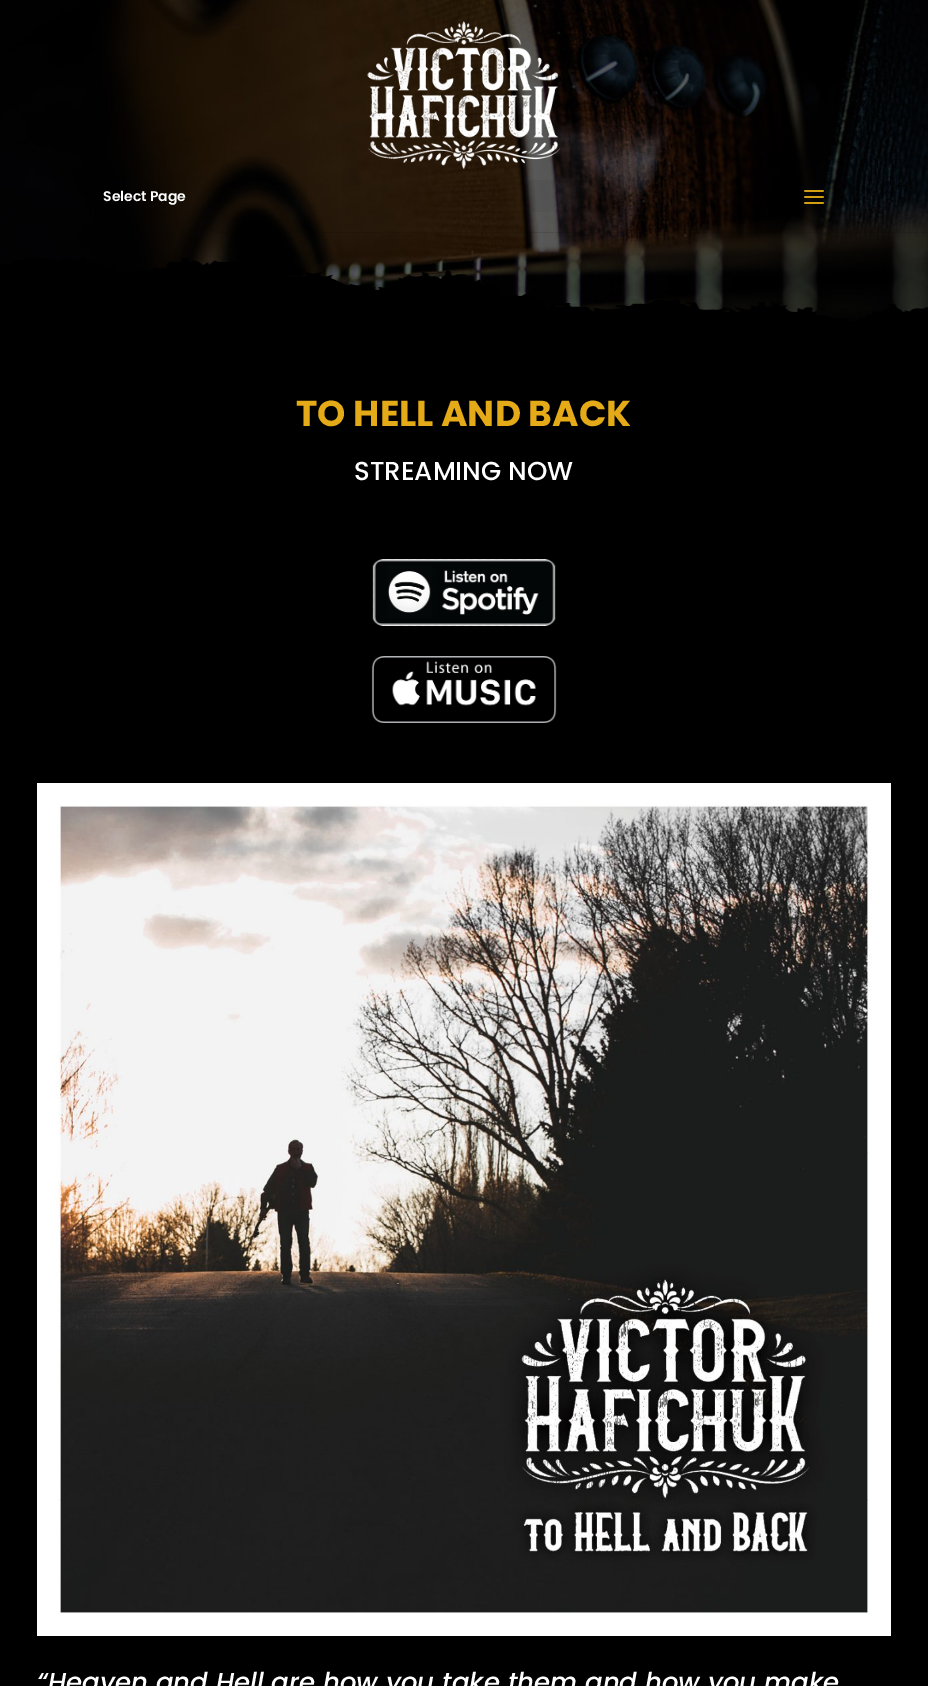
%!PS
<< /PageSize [928 1686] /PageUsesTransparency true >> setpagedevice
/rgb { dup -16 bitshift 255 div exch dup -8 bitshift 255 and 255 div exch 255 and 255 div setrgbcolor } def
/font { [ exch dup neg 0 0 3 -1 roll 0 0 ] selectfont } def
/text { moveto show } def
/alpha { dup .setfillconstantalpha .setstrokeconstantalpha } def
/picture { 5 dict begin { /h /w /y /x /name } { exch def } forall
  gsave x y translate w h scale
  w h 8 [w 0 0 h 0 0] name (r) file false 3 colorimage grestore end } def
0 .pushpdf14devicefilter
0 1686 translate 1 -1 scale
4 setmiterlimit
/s1 { /Poppins-SemiBold 14 font 16#FFFFFF rgb } def
/s2 { /Poppins-Bold 36 font 16#E4AA17 rgb } def
/s3 { /Poppins-Medium 26 font 16#FFFFFF rgb } def
/s4 { /Poppins-MediumItalic 26 font 16#FFFFFF rgb } def
16#FFFFFF rgb
0 0 928 1686 rectfill
(pic1.raw) 0 0 928 322 picture
0.1 alpha
16#000000 rgb
214 232 714 1 rectfill
1 alpha
(pic2.raw) 367 21 194 148 picture
0.05 alpha
528 180 303 32 rectfill
1 alpha
s1
(Select Page) 103 201 text
(pic3.raw) 804 190 20 14 picture
(pic4.raw) 0 258 928 70 picture
16#000000 rgb
0 328 928 1358 rectfill
s2
(TO HELL AND BACK) 296 426 text
s3
(STREAMING NOW) 354 480 text
(pic5.raw) 372 559 184 67 picture
(pic6.raw) 371 656 186 67 picture
(pic7.raw) 37 783 854 853 picture
s4
(“Heaven and Hell are how you take them and how you make) 37 1691 text
.poppdf14devicefilter showpage
